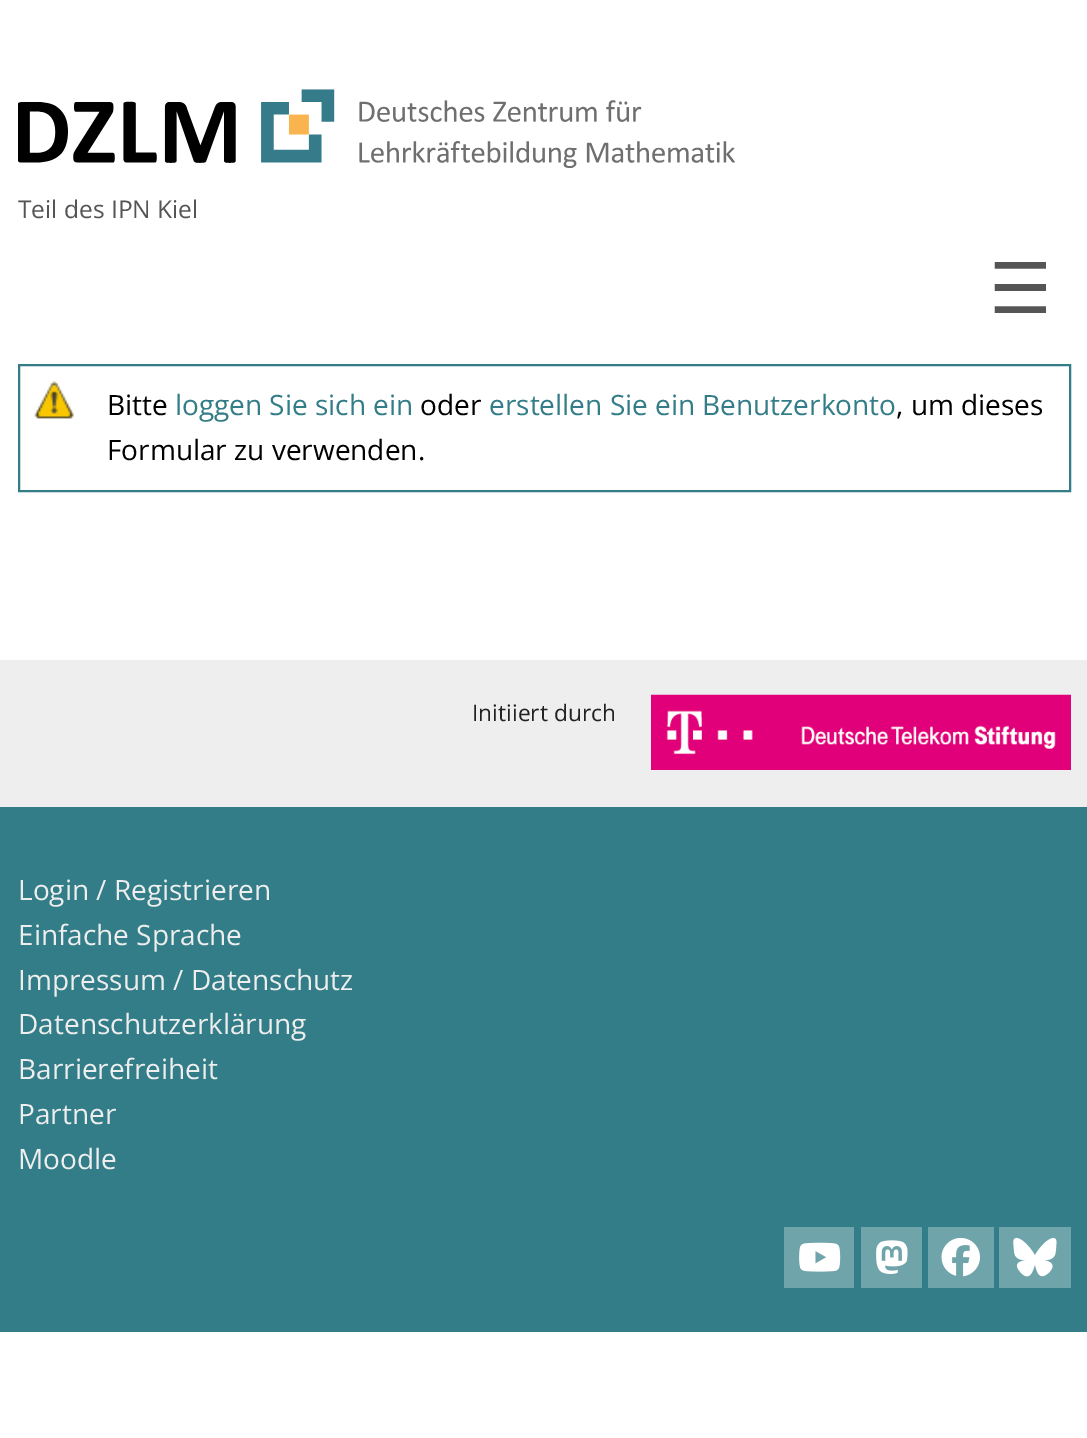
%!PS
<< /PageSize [1087 1438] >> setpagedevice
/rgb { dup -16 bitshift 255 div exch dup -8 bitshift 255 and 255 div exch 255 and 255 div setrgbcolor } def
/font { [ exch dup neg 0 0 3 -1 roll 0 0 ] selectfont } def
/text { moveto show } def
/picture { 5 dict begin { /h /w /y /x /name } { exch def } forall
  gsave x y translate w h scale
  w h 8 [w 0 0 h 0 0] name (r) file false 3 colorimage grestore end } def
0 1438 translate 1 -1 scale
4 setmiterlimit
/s1 { /OpenSans-Regular 24.5 font 16#555555 rgb } def
/s2 { /DejaVuSans-Regular 70 font 16#555555 rgb } def
/s3 { /OpenSans-Regular 28 font 16#000000 rgb } def
/s4 { /OpenSans-Regular 28 font 16#327D87 rgb } def
/s5 { /OpenSans-Regular 22.75 font 16#222222 rgb } def
/s6 { /OpenSans-Regular 28 font 16#EEEEEE rgb } def
16#FFFFFF rgb
0 0 1087 1438 rectfill
(pic1.raw) 18 89 717 79 picture
s1
(Teil des IPN Kiel) 18 218 text
s2
(☰) 989 313 text
(pic2.raw) 34 381 40 38 picture
16#327D87 rgb
2 setlinewidth
19 365 1051 126 rectstroke
s3
(Bitte) 107 415 text
s4
(loggen Sie sich ein) 175 415 text
s3
(oder) 420 415 text
s4
(erstellen Sie ein Benutzerkonto) 489 415 text
s3
(, um dieses) 896 415 text
(Formular zu verwenden.) 107 460 text
16#EEEEEE rgb
0 660 1087 147 rectfill
s5
(Initiiert durch) 472 721 text
(pic3.raw) 651 694 420 76 picture
16#327D87 rgb
0 807 1087 525 rectfill
s6
(Login / Registrieren) 18 900 text
(Einfache Sprache) 18 945 text
(Impressum / Datenschutz) 18 990 text
(Datenschutzerklärung) 18 1034 text
(Barrierefreiheit) 18 1079 text
(Partner) 18 1124 text
(Moodle) 18 1169 text
16#70A4AB rgb
784 1227 70 61 rectfill
(pic4.raw) 799 1242 42 30 picture
861 1227 61 61 rectfill
(pic5.raw) 876 1240 32 34 picture
928 1227 66 61 rectfill
(pic6.raw) 941 1237 39 40 picture
999 1227 72 61 rectfill
(pic7.raw) 1013 1237 44 40 picture
showpage
